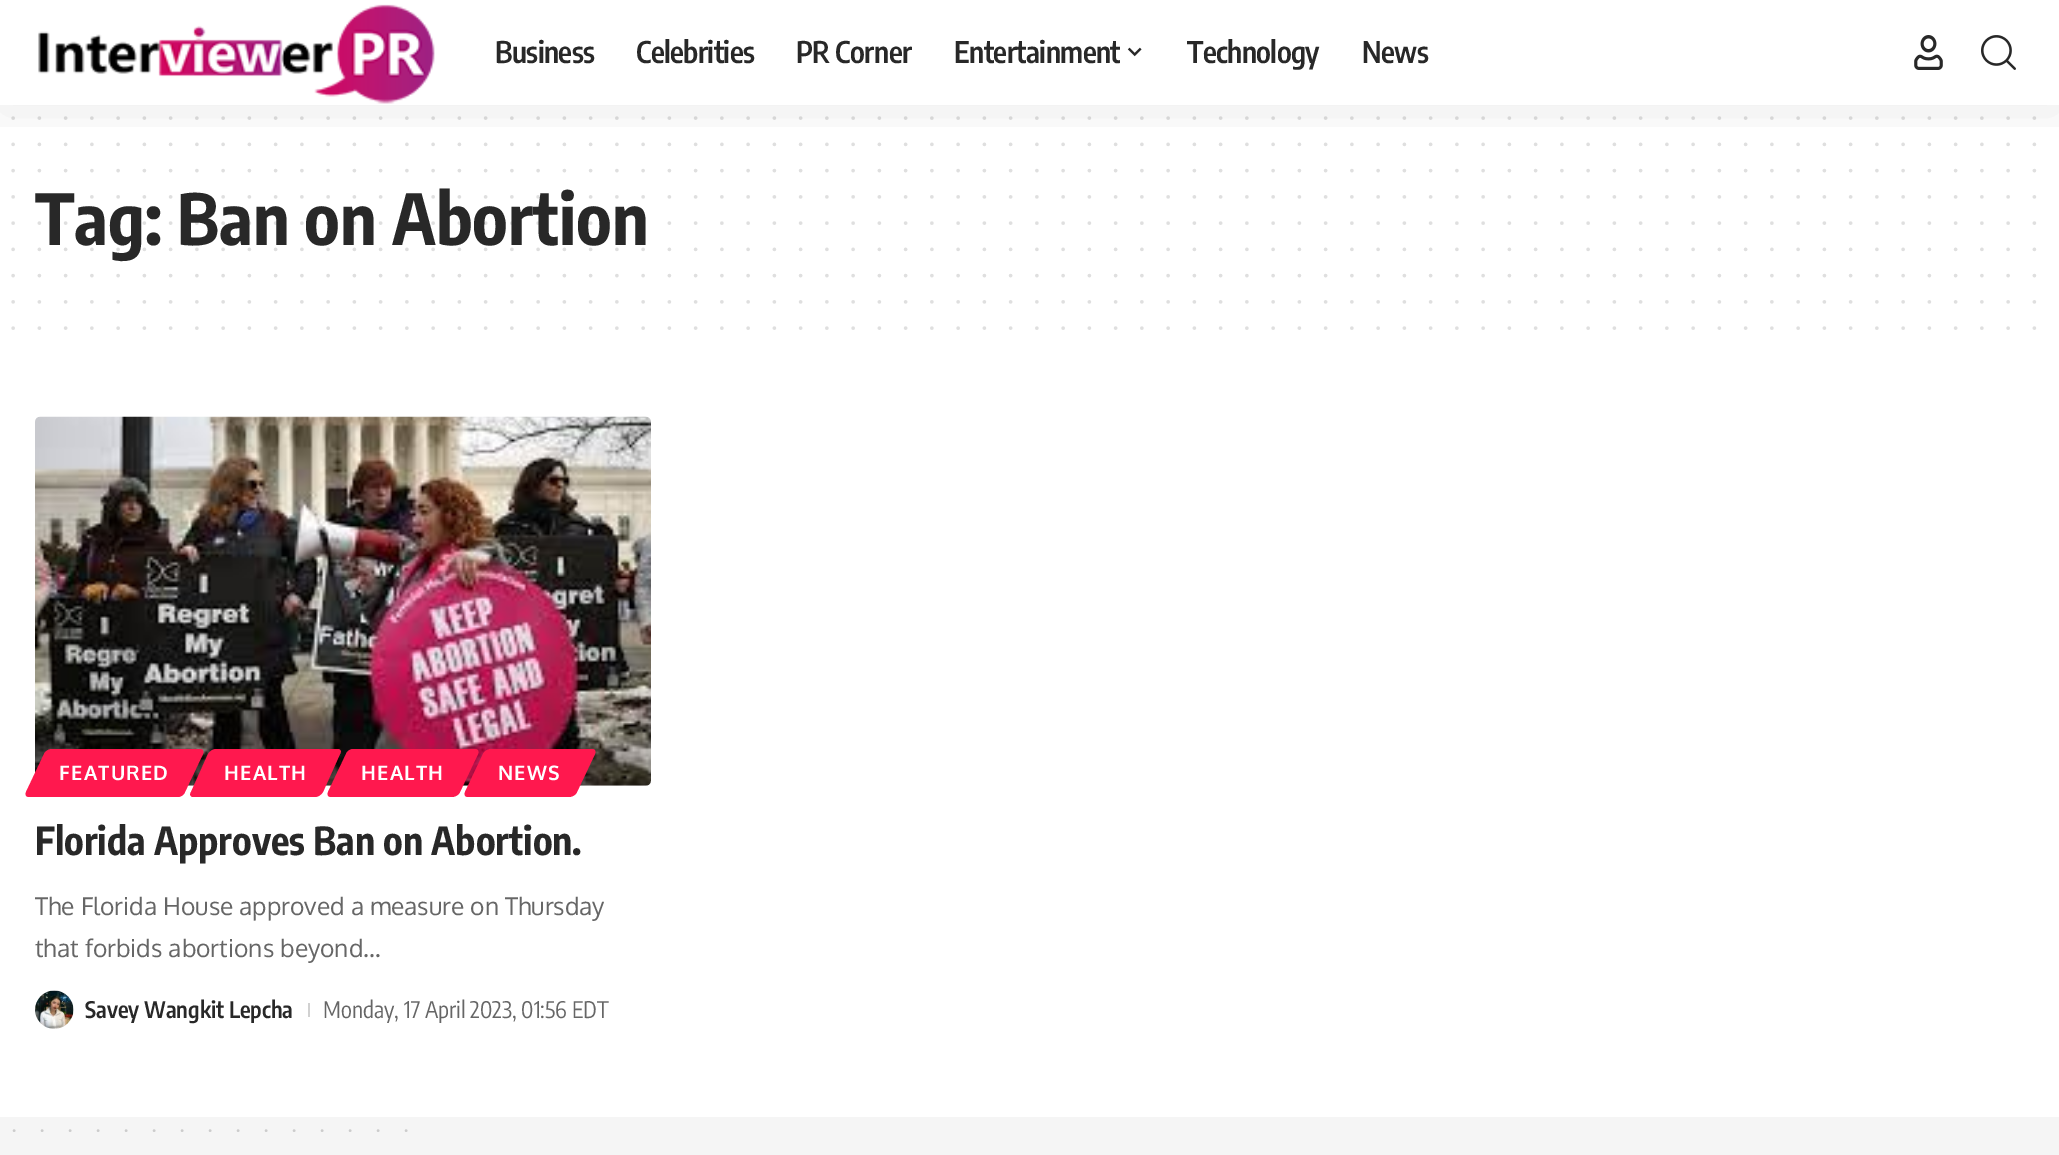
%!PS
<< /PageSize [2059 1155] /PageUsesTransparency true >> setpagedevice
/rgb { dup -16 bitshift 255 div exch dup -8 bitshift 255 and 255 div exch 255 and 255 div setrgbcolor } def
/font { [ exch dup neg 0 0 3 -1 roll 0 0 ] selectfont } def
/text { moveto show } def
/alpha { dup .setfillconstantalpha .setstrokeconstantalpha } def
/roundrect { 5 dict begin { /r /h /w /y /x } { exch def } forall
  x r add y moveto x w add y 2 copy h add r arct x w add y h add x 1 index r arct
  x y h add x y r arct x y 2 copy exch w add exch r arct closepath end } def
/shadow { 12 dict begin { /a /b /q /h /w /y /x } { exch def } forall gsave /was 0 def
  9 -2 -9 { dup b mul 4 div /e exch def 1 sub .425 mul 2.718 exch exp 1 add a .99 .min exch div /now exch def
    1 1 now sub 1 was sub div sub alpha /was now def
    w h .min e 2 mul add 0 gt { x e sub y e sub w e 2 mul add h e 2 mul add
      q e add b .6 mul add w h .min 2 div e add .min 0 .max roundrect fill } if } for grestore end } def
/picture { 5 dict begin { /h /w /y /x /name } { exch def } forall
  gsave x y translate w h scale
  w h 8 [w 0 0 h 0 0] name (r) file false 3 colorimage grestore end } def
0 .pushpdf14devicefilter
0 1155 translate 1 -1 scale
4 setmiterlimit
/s1 { /EncodeSansCondensed-Bold 70 font 16#282828 rgb } def
/s2 { /EncodeSansCondensed-Bold 38.5 font 16#282828 rgb } def
/s3 { /Oxygen-Regular 24.5 font 16#666666 rgb } def
/s4 { /EncodeSansCondensed-SemiBold 22.75 font 16#282828 rgb } def
/s5 { /EncodeSansCondensed-Regular 22.75 font 16#666666 rgb } def
16#FFFFFF rgb
0 0 2059 1155 rectfill
16#DFDFDF rgb
3.5 setlinewidth
1 setlinecap
[0 26.25] 0 setdash
13.1 118.1 moveto 2034.7 118.1 lineto stroke
13.1 144.4 moveto 2034.7 144.4 lineto stroke
13.1 170.6 moveto 2034.7 170.6 lineto stroke
gsave
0 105 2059 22 rectclip
16#000000 rgb
0 7 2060 105 0 26 0.07 shadow
grestore
(pic1.raw) 38 4 397 100 picture
/EncodeSansCondensed-SemiBold 29.75 font
16#282828 rgb
495 63 moveto -0.6 0 (Business) ashow
636 63 moveto -0.6 0 (Celebrities) ashow
796 63 moveto -0.6 0 (PR Corner) ashow
954 63 moveto -0.6 0 (Entertainment) ashow
(pic2.raw) 1127 47 15 10 picture
1187 63 moveto -0.6 0 (Technology) ashow
1362 63 moveto -0.6 0 (News) ashow
(pic3.raw) 1914 35 29 35 picture
(pic4.raw) 1981 35 35 35 picture
s1
(Tag: Ban on Abortion) 35 245 text
0.15 alpha
13.1 196.9 moveto 2034.7 196.9 lineto stroke
13.1 223.1 moveto 2034.7 223.1 lineto stroke
1 alpha
16#DFDFDF rgb
13.1 249.4 moveto 2034.7 249.4 lineto stroke
13.1 275.6 moveto 2034.7 275.6 lineto stroke
13.1 301.9 moveto 2034.7 301.9 lineto stroke
13.1 328.1 moveto 2034.7 328.1 lineto stroke
(pic5.raw) 35 416 616 370 picture
16#FF184E rgb
52 749 moveto 200 749 lineto 203 749 204 751 203 754 curveto 185 792 lineto 184 795 181 797 178 797 curveto 29 797 lineto 26 797 25 795 26 792 curveto 44 754 lineto 45 751 49 749 52 749 curveto closepath fill
/Oxygen-Bold 20 font
16#FFFFFF rgb
59 780 moveto 1.25 0 (FEATURED) ashow
16#FF184E rgb
216 749 moveto 338 749 lineto 340 749 342 751 340 754 curveto 323 792 lineto 321 795 318 797 315 797 curveto 193 797 lineto 191 797 189 795 191 792 curveto 208 754 lineto 210 751 213 749 216 749 curveto closepath fill
16#FFFFFF rgb
224 780 moveto 1.25 0 (HEALTH) ashow
16#FF184E rgb
353 749 moveto 475 749 lineto 478 749 479 751 478 754 curveto 460 792 lineto 459 795 455 797 452 797 curveto 331 797 lineto 328 797 327 795 328 792 curveto 346 754 lineto 347 751 350 749 353 749 curveto closepath fill
16#FFFFFF rgb
361 780 moveto 1.25 0 (HEALTH) ashow
16#FF184E rgb
491 749 moveto 592 749 lineto 595 749 596 751 595 754 curveto 577 792 lineto 576 795 572 797 569 797 curveto 468 797 lineto 465 797 464 795 465 792 curveto 483 754 lineto 484 751 488 749 491 749 curveto closepath fill
16#FFFFFF rgb
498 780 moveto 1.25 0 (NEWS) ashow
s2
(Florida Approves Ban on Abortion.) 35 855 text
s3
(The Florida House approved a measure on Thursday) 35 915 text
(that forbids abortions beyond…) 35 957 text
(pic6.raw) 35 990 39 39 picture
s4
(Savey Wangkit Lepcha) 85 1018 text
16#D1D1D1 rgb
308 1003 2 14 rectfill
s5
(Monday, 17 April 2023, 01:56 EDT) 323 1018 text
16#F5F5F5 rgb
0 1117 2059 38 rectfill
16#CCCCCC rgb
2.6 setlinewidth
[0 28] 0 setdash
14 1130.5 moveto 406.3 1130.5 lineto stroke
.poppdf14devicefilter showpage
